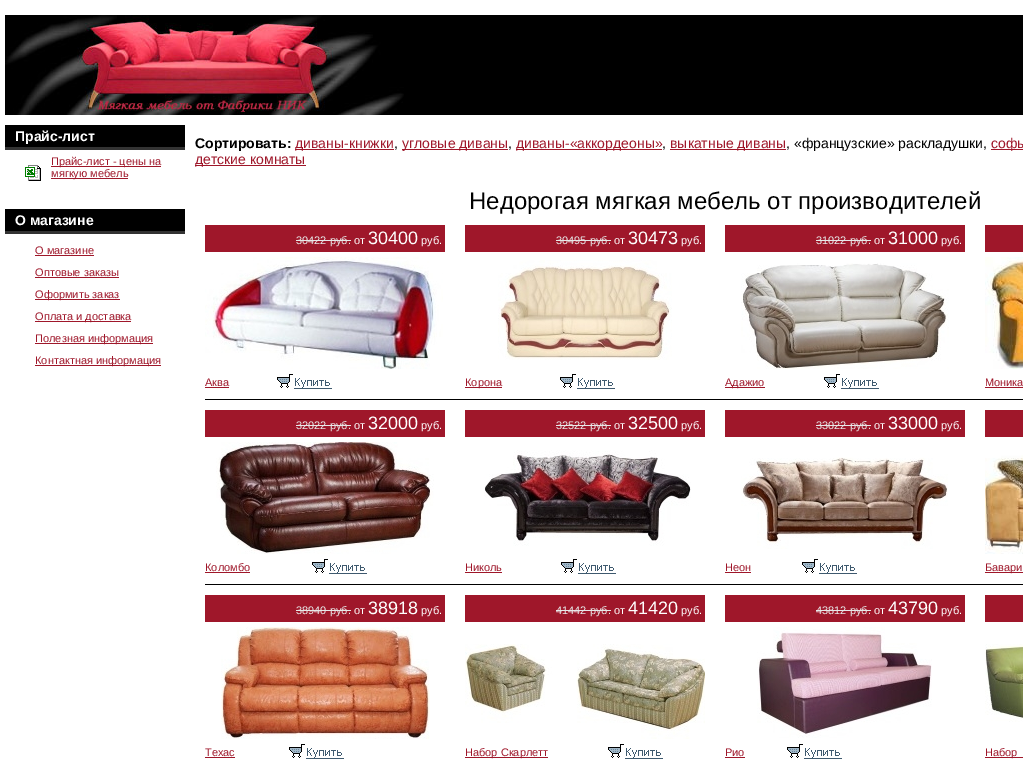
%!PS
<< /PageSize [1023 764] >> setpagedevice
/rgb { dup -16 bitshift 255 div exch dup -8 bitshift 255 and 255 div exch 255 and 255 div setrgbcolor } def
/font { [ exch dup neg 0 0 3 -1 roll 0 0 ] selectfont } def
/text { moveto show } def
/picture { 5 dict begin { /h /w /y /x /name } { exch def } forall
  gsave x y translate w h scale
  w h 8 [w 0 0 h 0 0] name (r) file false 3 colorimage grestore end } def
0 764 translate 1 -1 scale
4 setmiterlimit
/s1 { /LiberationSans-Bold 14 font 16#FFFFFF rgb } def
/s2 { /LiberationSans-Regular 11 font 16#9F172A rgb } def
/s3 { /LiberationSans-Bold 14 font 16#000000 rgb } def
/s4 { /LiberationSans-Regular 14 font 16#9F172A rgb } def
/s5 { /LiberationSans-Regular 14 font 16#000000 rgb } def
/s6 { /LiberationSans-Regular 24 font 16#000000 rgb } def
/s7 { /LiberationSans-Regular 11 font 16#E8E8E8 rgb } def
/s8 { /LiberationSans-Regular 11 font 16#FFFFFF rgb } def
/s9 { /LiberationSans-Regular 18 font 16#FFFFFF rgb } def
16#FFFFFF rgb
0 0 1023 764 rectfill
16#000000 rgb
404 15 619 100 rectfill
(pic1.raw) 5 15 399 100 picture
5 125 180 22 rectfill
16#333333 rgb
5 147 180 3 rectfill
s1
(Прайс-лист) 15 141 text
16#9F172A rgb
51 166 110 1 rectfill
s2
(Прайс-лист - цены на) 51 165 text
(pic2.raw) 25 165 16 16 picture
51 178 77 1 rectfill
(мягкую мебель) 51 177 text
16#000000 rgb
5 209 180 22 rectfill
16#333333 rgb
5 231 180 3 rectfill
s1
(О магазине) 15 225 text
s2
(О магазине) 35 254 text
35 255 59 1 rectfill
(Оптовые заказы) 35 276 text
35 277 84 1 rectfill
35 299 85 1 rectfill
(Оформить заказ) 35 298 text
35 321 96 1 rectfill
(Оплата и доставка) 35 320 text
35 343 118 1 rectfill
(Полезная информация) 35 342 text
35 365 126 1 rectfill
(Контактная информация) 35 364 text
s3
(Сортировать:) 195 148 text
16#9F172A rgb
295 149 99 1 rectfill
s4
(диваны-книжки) 295 148 text
s5
(,) 394 148 text
16#9F172A rgb
402 149 106 1 rectfill
(угловые диваны) 402 148 text
s5
(,) 508 148 text
16#9F172A rgb
516 149 146 1 rectfill
(диваны-«аккордеоны») 516 148 text
s5
(,) 662 148 text
16#9F172A rgb
670 149 116 1 rectfill
(выкатные диваны) 670 148 text
s5
(, «французские» раскладушки,) 786 148 text
16#9F172A rgb
991 149 32 1 rectfill
(софы) 991 148 text
195 165 111 1 rectfill
(детские комнаты) 195 164 text
s6
(Недорогая мягкая мебель от производителей) 469 209 text
205 399 818 1 rectfill
16#9F172A rgb
205 225 240 27 rectfill
s7
(30422 руб.) 296 244 text
296 240 55 1 rectfill
s8
(от) 354 244 text
s9
(30400) 368 244 text
s8
(руб.) 421 244 text
(pic3.raw) 205 257 238 112 picture
s2
(Аква) 205 386 text
205 387 24 1 rectfill
(pic4.raw) 277 374 55 15 picture
465 225 240 27 rectfill
s7
(30495 руб.) 556 244 text
556 240 55 1 rectfill
s8
(от) 614 244 text
s9
(30473) 628 244 text
s8
(руб.) 681 244 text
(pic5.raw) 498 260 174 100 picture
16#9F172A rgb
465 387 37 1 rectfill
(Корона) 465 386 text
(pic4.raw) 560 374 55 15 picture
725 225 240 27 rectfill
s7
(31022 руб.) 816 244 text
816 240 55 1 rectfill
s8
(от) 874 244 text
s9
(31000) 888 244 text
s8
(руб.) 941 244 text
(pic6.raw) 741 263 208 106 picture
16#9F172A rgb
725 387 40 1 rectfill
(Адажио) 725 386 text
(pic4.raw) 824 374 55 15 picture
985 225 38 27 rectfill
(pic7.raw) 985 257 38 112 picture
(Моника) 985 386 text
985 387 38 1 rectfill
16#000000 rgb
205 584 818 1 rectfill
16#9F172A rgb
205 410 240 27 rectfill
s7
(32022 руб.) 296 429 text
296 425 55 1 rectfill
s8
(от) 354 429 text
s9
(32000) 368 429 text
s8
(руб.) 421 429 text
(pic8.raw) 216 442 218 112 picture
s2
(Коломбо) 205 571 text
205 572 45 1 rectfill
(pic4.raw) 312 559 55 15 picture
465 410 240 27 rectfill
s7
(32522 руб.) 556 429 text
556 425 55 1 rectfill
s8
(от) 614 429 text
s9
(32500) 628 429 text
s8
(руб.) 681 429 text
(pic9.raw) 484 450 207 96 picture
s2
(Николь) 465 571 text
465 572 37 1 rectfill
(pic4.raw) 561 559 55 15 picture
725 410 240 27 rectfill
s7
(33022 руб.) 816 429 text
816 425 55 1 rectfill
s8
(от) 874 429 text
s9
(33000) 888 429 text
s8
(руб.) 941 429 text
(pic10.raw) 741 457 207 92 picture
s2
(Неон) 725 571 text
725 572 26 1 rectfill
(pic4.raw) 802 559 55 15 picture
985 410 38 27 rectfill
(pic11.raw) 985 455 38 99 picture
985 572 38 1 rectfill
(Бавари) 985 571 text
205 595 240 27 rectfill
s7
(38940 руб.) 296 614 text
296 610 55 1 rectfill
s8
(от) 354 614 text
s9
(38918) 368 614 text
s8
(руб.) 421 614 text
(pic12.raw) 221 627 209 112 picture
s2
(Техас) 205 756 text
205 757 30 1 rectfill
(pic4.raw) 289 744 55 15 picture
465 595 240 27 rectfill
s7
(41442 руб.) 556 614 text
556 610 55 1 rectfill
s8
(от) 614 614 text
s9
(41420) 628 614 text
s8
(руб.) 681 614 text
(pic13.raw) 465 644 240 95 picture
16#9F172A rgb
465 757 83 1 rectfill
(Набор Скарлетт) 465 756 text
(pic4.raw) 608 744 55 15 picture
725 595 240 27 rectfill
s7
(43812 руб.) 816 614 text
816 610 55 1 rectfill
s8
(от) 874 614 text
s9
(43790) 888 614 text
s8
(руб.) 941 614 text
(pic14.raw) 757 627 175 111 picture
s2
(Рио) 725 756 text
725 757 20 1 rectfill
(pic4.raw) 787 744 55 15 picture
985 595 38 27 rectfill
(pic15.raw) 985 644 38 78 picture
985 757 38 1 rectfill
(Набор) 985 756 text
showpage
